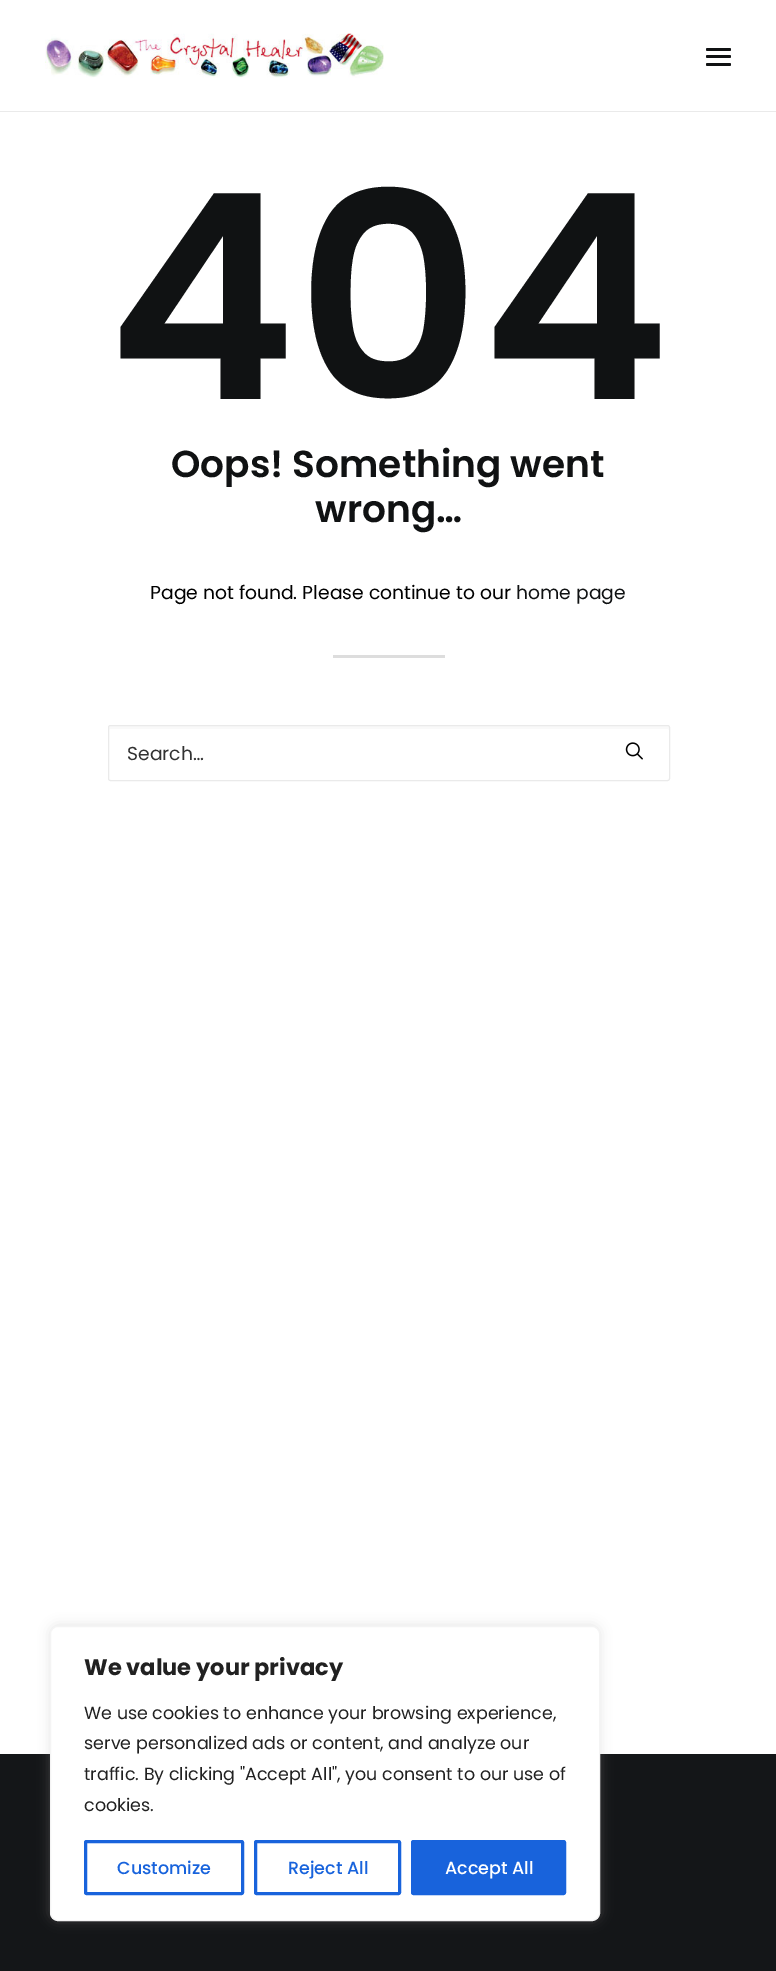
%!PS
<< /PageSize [776 1971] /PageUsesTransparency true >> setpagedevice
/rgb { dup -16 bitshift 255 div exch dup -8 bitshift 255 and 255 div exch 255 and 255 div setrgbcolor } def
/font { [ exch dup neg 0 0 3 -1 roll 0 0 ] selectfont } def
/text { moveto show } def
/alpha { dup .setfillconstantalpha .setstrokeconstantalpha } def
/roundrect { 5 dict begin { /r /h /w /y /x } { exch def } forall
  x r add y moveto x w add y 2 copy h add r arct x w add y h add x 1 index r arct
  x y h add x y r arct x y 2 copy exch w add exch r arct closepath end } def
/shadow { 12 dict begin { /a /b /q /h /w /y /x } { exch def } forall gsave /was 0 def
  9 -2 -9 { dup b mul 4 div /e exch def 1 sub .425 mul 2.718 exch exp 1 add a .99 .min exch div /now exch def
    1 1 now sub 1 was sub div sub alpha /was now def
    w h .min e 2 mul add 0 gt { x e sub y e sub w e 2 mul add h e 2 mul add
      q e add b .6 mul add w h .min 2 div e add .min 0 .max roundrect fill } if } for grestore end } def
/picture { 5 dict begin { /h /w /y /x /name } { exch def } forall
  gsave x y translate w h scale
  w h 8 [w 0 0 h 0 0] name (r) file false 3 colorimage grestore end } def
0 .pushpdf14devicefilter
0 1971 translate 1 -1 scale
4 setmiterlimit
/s1 { /Poppins-SemiBold 286 font 16#101213 rgb } def
/s2 { /Poppins-SemiBold 37.5 font 16#101213 rgb } def
/s3 { /Poppins-Regular 18.75 font 16#000000 rgb } def
/s4 { /Poppins-Regular 18.75 font 16#101213 rgb } def
/s5 { /Poppins-Regular 18.75 font 16#323232 rgb } def
/s6 { /Poppins-Bold 22.5 font 16#212121 rgb } def
/s7 { /Poppins-Regular 17.5 font 16#212121 rgb } def
/s8 { /Poppins-Medium 17.5 font 16#1863DC rgb } def
/s9 { /Poppins-Medium 17.5 font 16#FFFFFF rgb } def
16#FFFFFF rgb
0 0 776 1971 rectfill
16#EAEAEA rgb
0 111 776 1 rectfill
(pic1.raw) 45 33 339 45 picture
16#101213 rgb
706 55 25 3 1.5 roundrect fill
706 48 25 3 1.5 roundrect fill
706 63 25 3 1.5 roundrect fill
s1
(404) 107 399 text
s2
(Oops! Something went) 171 477 text
(wrong…) 315 522 text
s3
(Page not found. Please continue to our) 150 599 text
s4
(home page) 516 599 text
16#DDDDDD rgb
333 655 112 3 rectfill
16#F9F9F9 rgb
110 729 moveto 668 729 lineto 669 730 lineto 669 729 670 726 668 726 curveto 109 726 lineto 109 730 lineto 109 729 109 729 110 729 curveto closepath fill
16#EAEAEA rgb
108.5 725.5 561 55 2 roundrect stroke
s5
(Search…) 127 760 text
(pic2.raw) 625 742 18 18 picture
16#141618 rgb
0 1754 776 217 rectfill
16#ACABAB rgb
50 1625 550 295 8 6 0.3 shadow
16#FFFFFF rgb
50.5 1626.5 549 294 7.5 roundrect gsave fill grestore
16#F4F4F4 rgb
stroke
s6
(We value your privacy) 84 1675 text
s7
(We use cookies to enhance your browsing experience,) 84 1719 text
(serve personalized ads or content, and analyze our) 84 1749 text
(traffic. By clicking "Accept All", you consent to our use of) 84 1780 text
(cookies.) 84 1811 text
16#1863DC rgb
3 setlinewidth
85.5 1841.5 157 52 1 roundrect stroke
s8
(Customize) 117 1874 text
255.5 1841.5 144 52 1 roundrect stroke
(Reject All) 288 1874 text
412.5 1841.5 152 52 1 roundrect gsave fill grestore
stroke
s9
(Accept All) 445 1874 text
.poppdf14devicefilter showpage
